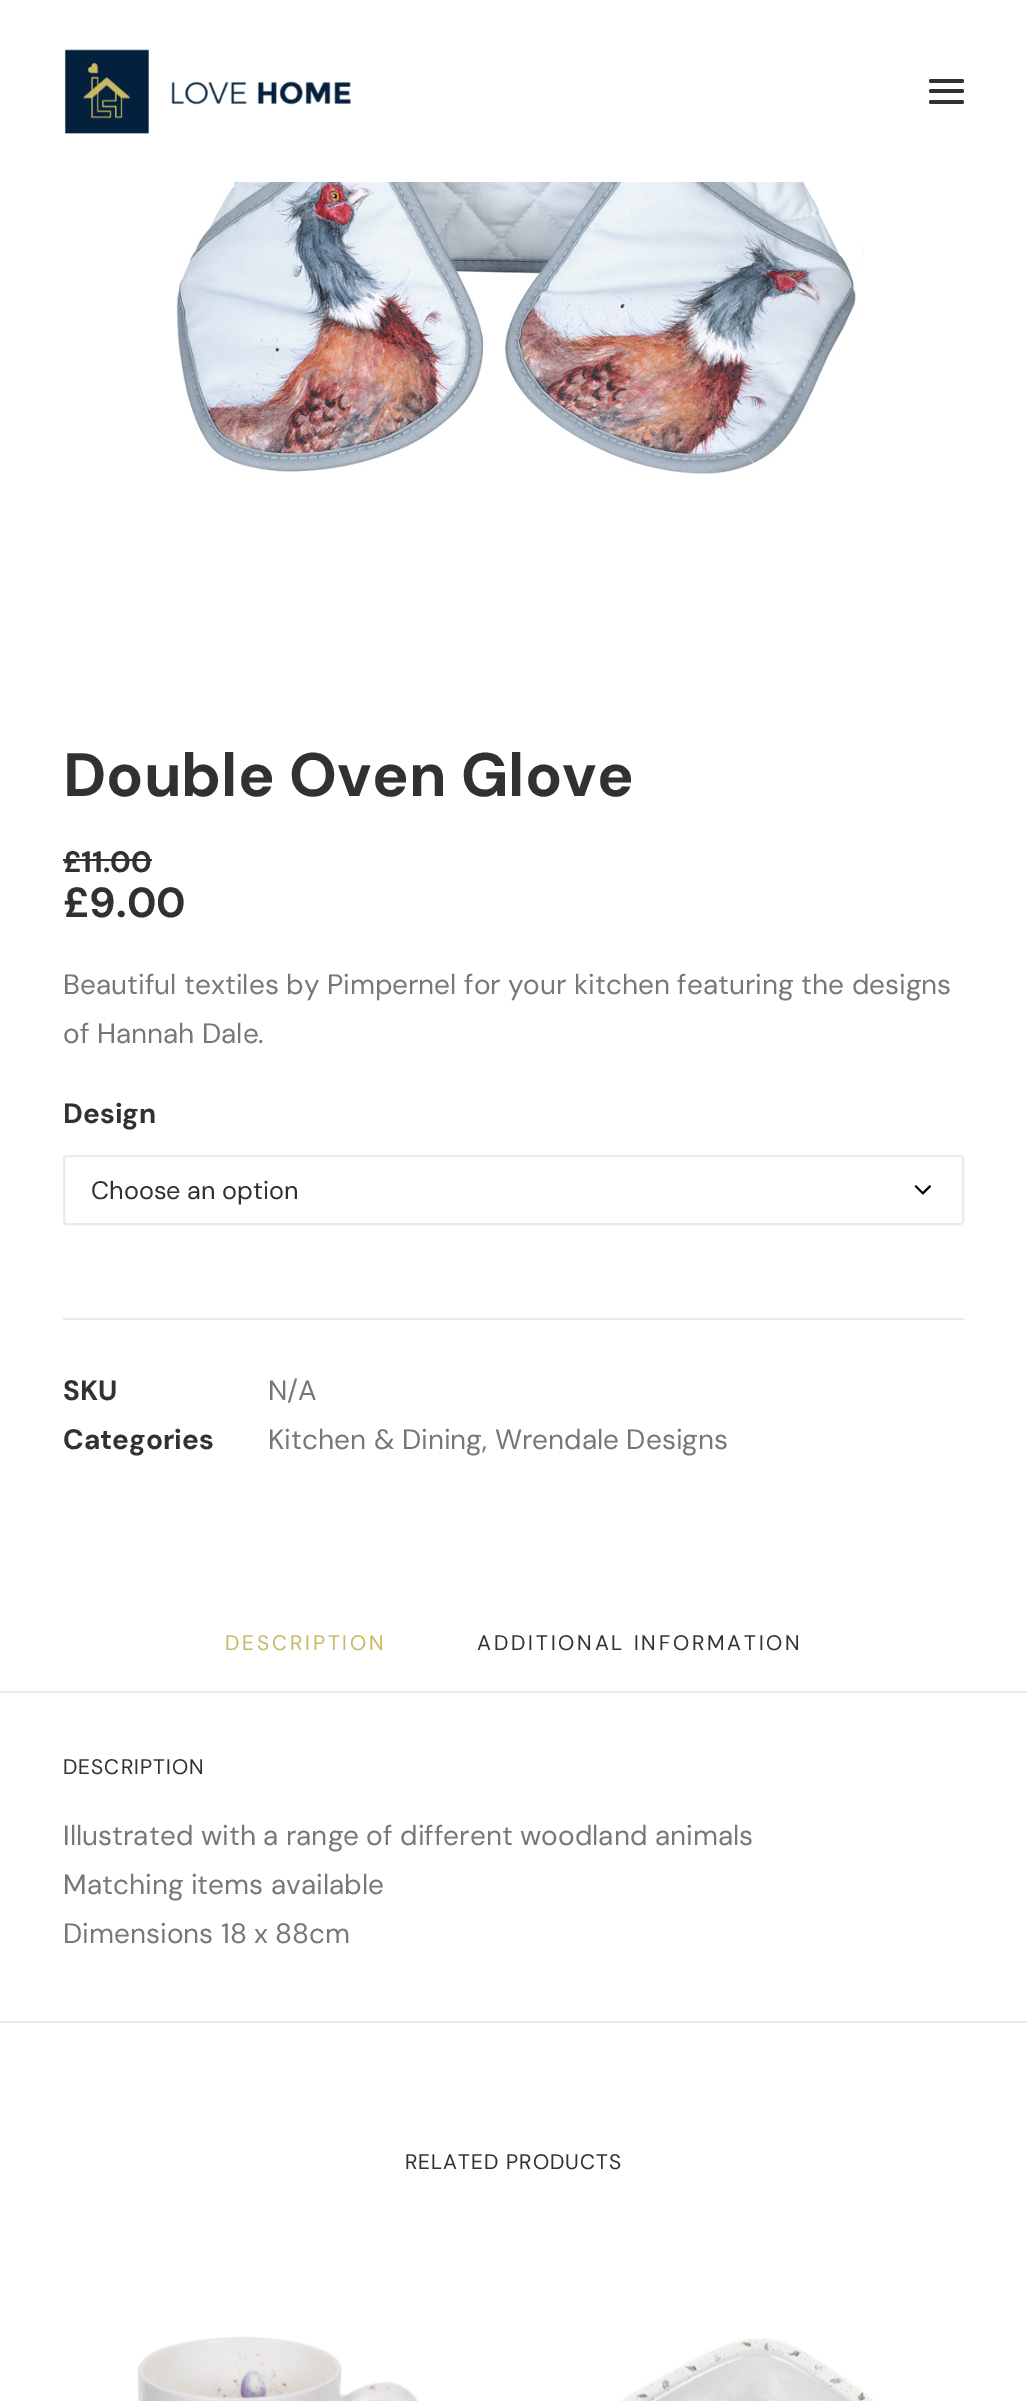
%!PS
<< /PageSize [1027 2401] >> setpagedevice
/rgb { dup -16 bitshift 255 div exch dup -8 bitshift 255 and 255 div exch 255 and 255 div setrgbcolor } def
/font { [ exch dup neg 0 0 3 -1 roll 0 0 ] selectfont } def
/text { moveto show } def
/roundrect { 5 dict begin { /r /h /w /y /x } { exch def } forall
  x r add y moveto x w add y 2 copy h add r arct x w add y h add x 1 index r arct
  x y h add x y r arct x y 2 copy exch w add exch r arct closepath end } def
/picture { 5 dict begin { /h /w /y /x /name } { exch def } forall
  gsave x y translate w h scale
  w h 8 [w 0 0 h 0 0] name (r) file false 3 colorimage grestore end } def
0 2401 translate 1 -1 scale
4 setmiterlimit
/s1 { /DMSans-Bold 61.25 font 16#303133 rgb } def
/s2 { /DMSans-Bold 29.5 font 16#303133 rgb } def
/s3 { /DMSans-Bold 42 font 16#303133 rgb } def
/s4 { /DMSans-Regular 28 font 16#777777 rgb } def
/s5 { /DMSans-Bold 28 font 16#303133 rgb } def
/s6 { /DMSans-Regular 25.25 font 16#303133 rgb } def
16#FFFFFF rgb
0 0 1027 2401 rectfill
(pic1.raw) 64 49 287 85 picture
16#303133 rgb
929 89 35 4 2 roundrect fill
929 79 35 4 2 roundrect fill
929 100 35 4 2 roundrect fill
(pic2.raw) 176 182 688 292 picture
s1
(Double Oven Glove) 63 796 text
s2
(£11.00) 63 872 text
63 859 89 2 rectfill
s3
(£9.00) 63 917 text
s4
(Beautiful textiles by Pimpernel for your kitchen featuring the designs) 63 994 text
(of Hannah Dale.) 63 1043 text
s5
(Design) 63 1123 text
(pic3.raw) 914 1185 18 10 picture
16#EAEAEA rgb
2 setlinewidth
64 1156 899 68 3 roundrect stroke
s6
(Choose an option) 91 1199 text
16#EAEAEA rgb
63 1318 901 2 rectfill
s5
(SKU) 63 1400 text
s4
(N/A) 268 1400 text
s5
(Categories) 63 1449 text
s4
(Kitchen & Dining, Wrendale Designs) 268 1449 text
/DMSans-Regular 21 font
16#CAB964 rgb
225 1650 moveto 2.8 0 (DESCRIPTION) ashow
16#303133 rgb
477 1650 moveto 2.8 0 (ADDITIONAL INFORMATION) ashow
16#EAEAEA rgb
0 1691 1027 2 rectfill
16#303133 rgb
63 1774 moveto 1 0 (DESCRIPTION) ashow
s4
(Illustrated with a range of different woodland animals) 63 1845 text
(Matching items available) 63 1894 text
(Dimensions 18 x 88cm) 63 1943 text
16#EAEAEA rgb
0 2021 1027 2 rectfill
/DMSans-Regular 21 font
16#303133 rgb
405 2169 moveto 1 0 (RELATED PRODUCTS) ashow
(pic4.raw) 137 2336 281 65 picture
(pic5.raw) 619 2338 256 63 picture
showpage
